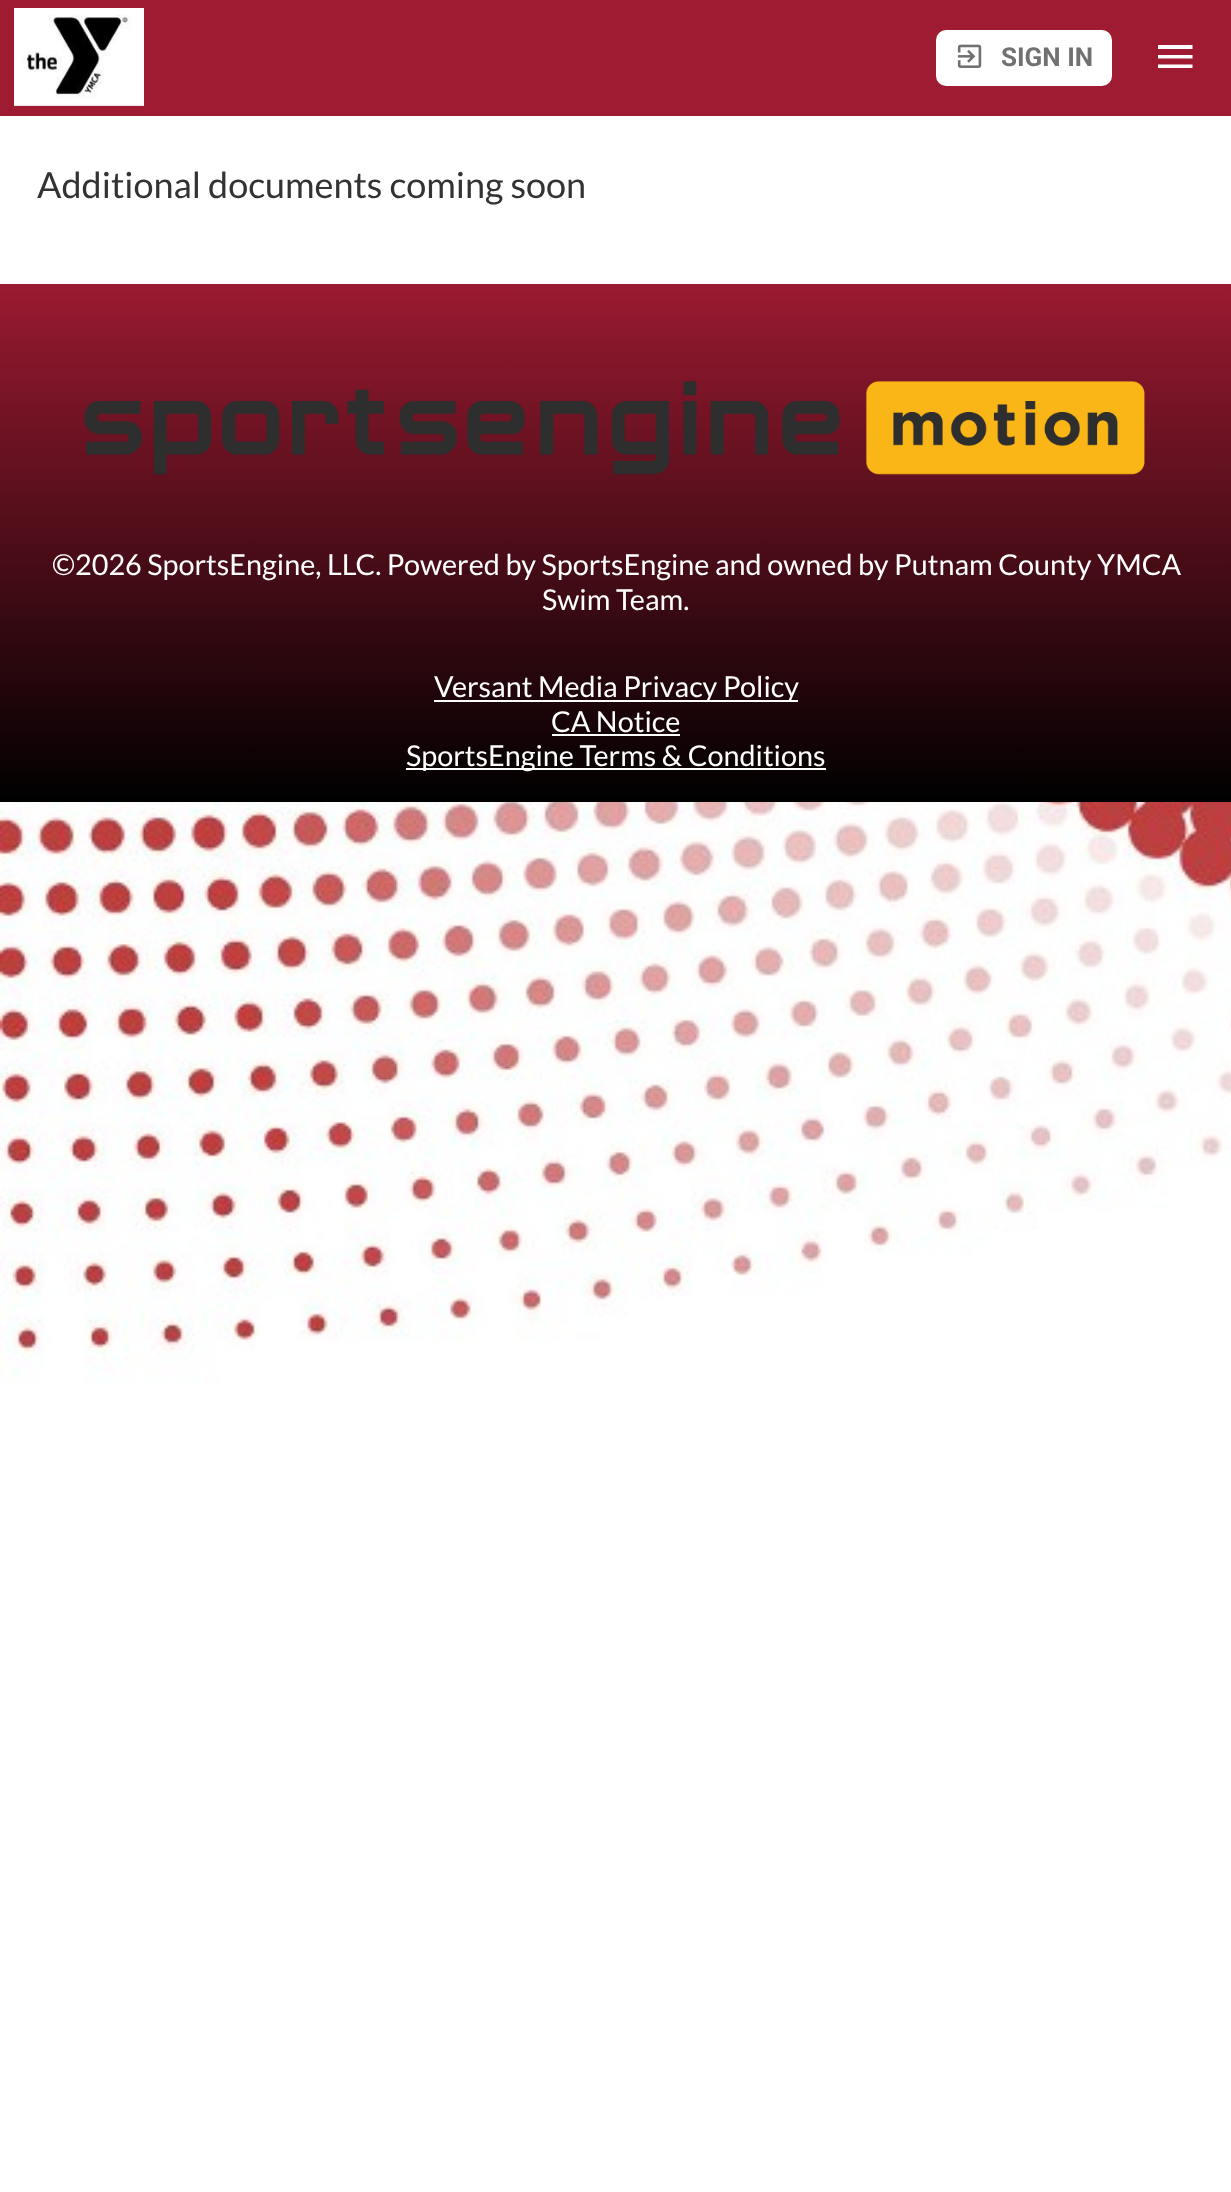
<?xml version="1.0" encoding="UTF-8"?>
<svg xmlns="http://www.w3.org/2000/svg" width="1231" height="2192">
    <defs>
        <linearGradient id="g1" gradientUnits="userSpaceOnUse" x1="616" y1="284" x2="616" y2="802"><stop offset="0" stop-color="#9A1A31"/><stop offset="1" stop-color="#000000"/></linearGradient>
    </defs>
    <rect width="100%" height="100%" fill="#FFFFFF"/>
    <image x="0" y="802" width="1231" height="1390" href="img_01.png"/>
    <rect x="0" y="0" width="1231" height="116" fill="#9E1B32"/>
    <image x="14" y="8" width="130" height="98" href="img_02.png"/>
    <rect x="936" y="30" width="176" height="56" rx="10" fill="#FFFFFF"/>
    <image x="957" y="44" width="25" height="24" href="img_03.png"/>
    <text x="1001" y="66" font-family="Roboto" font-size="26" font-weight="700" fill="#717171">SIGN IN</text>
    <path d="M 1158 45 H 1192.5 V 49 H 1158 Z M 1158 55 H 1192.5 V 58.5 H 1158 Z M 1158 64.5 H 1192.5 V 68 H 1158 Z" fill="#FFFFFF"/>
    <text x="37" y="198" font-family="Lato" font-size="36" fill="#333333">Additional documents coming soon</text>
    <rect x="0" y="284" width="1231" height="518" fill="url(#g1)"/>
    <image x="84" y="381" width="1061" height="94" href="img_04.png"/>
    <text x="52" y="575" font-family="Lato" font-size="28.8" fill="#FFFFFF">©2026 SportsEngine, LLC. Powered by SportsEngine and owned by Putnam County YMCA</text>
    <text x="542" y="610" font-family="Lato" font-size="28.8" fill="#FFFFFF">Swim Team.</text>
    <rect x="434" y="700" width="364" height="2" fill="#FFFFFF"/>
    <text x="434" y="697" font-family="Lato" font-size="28.8" fill="#FFFFFF">Versant Media Privacy Policy</text>
    <text x="551" y="732" font-family="Lato" font-size="28.8" fill="#FFFFFF">CA Notice</text>
    <rect x="552" y="734" width="128" height="2" fill="#FFFFFF"/>
    <rect x="406" y="768" width="420" height="2" fill="#FFFFFF"/>
    <text x="406" y="766" font-family="Lato" font-size="28.8" fill="#FFFFFF">SportsEngine Terms &amp; Conditions</text>
</svg>
